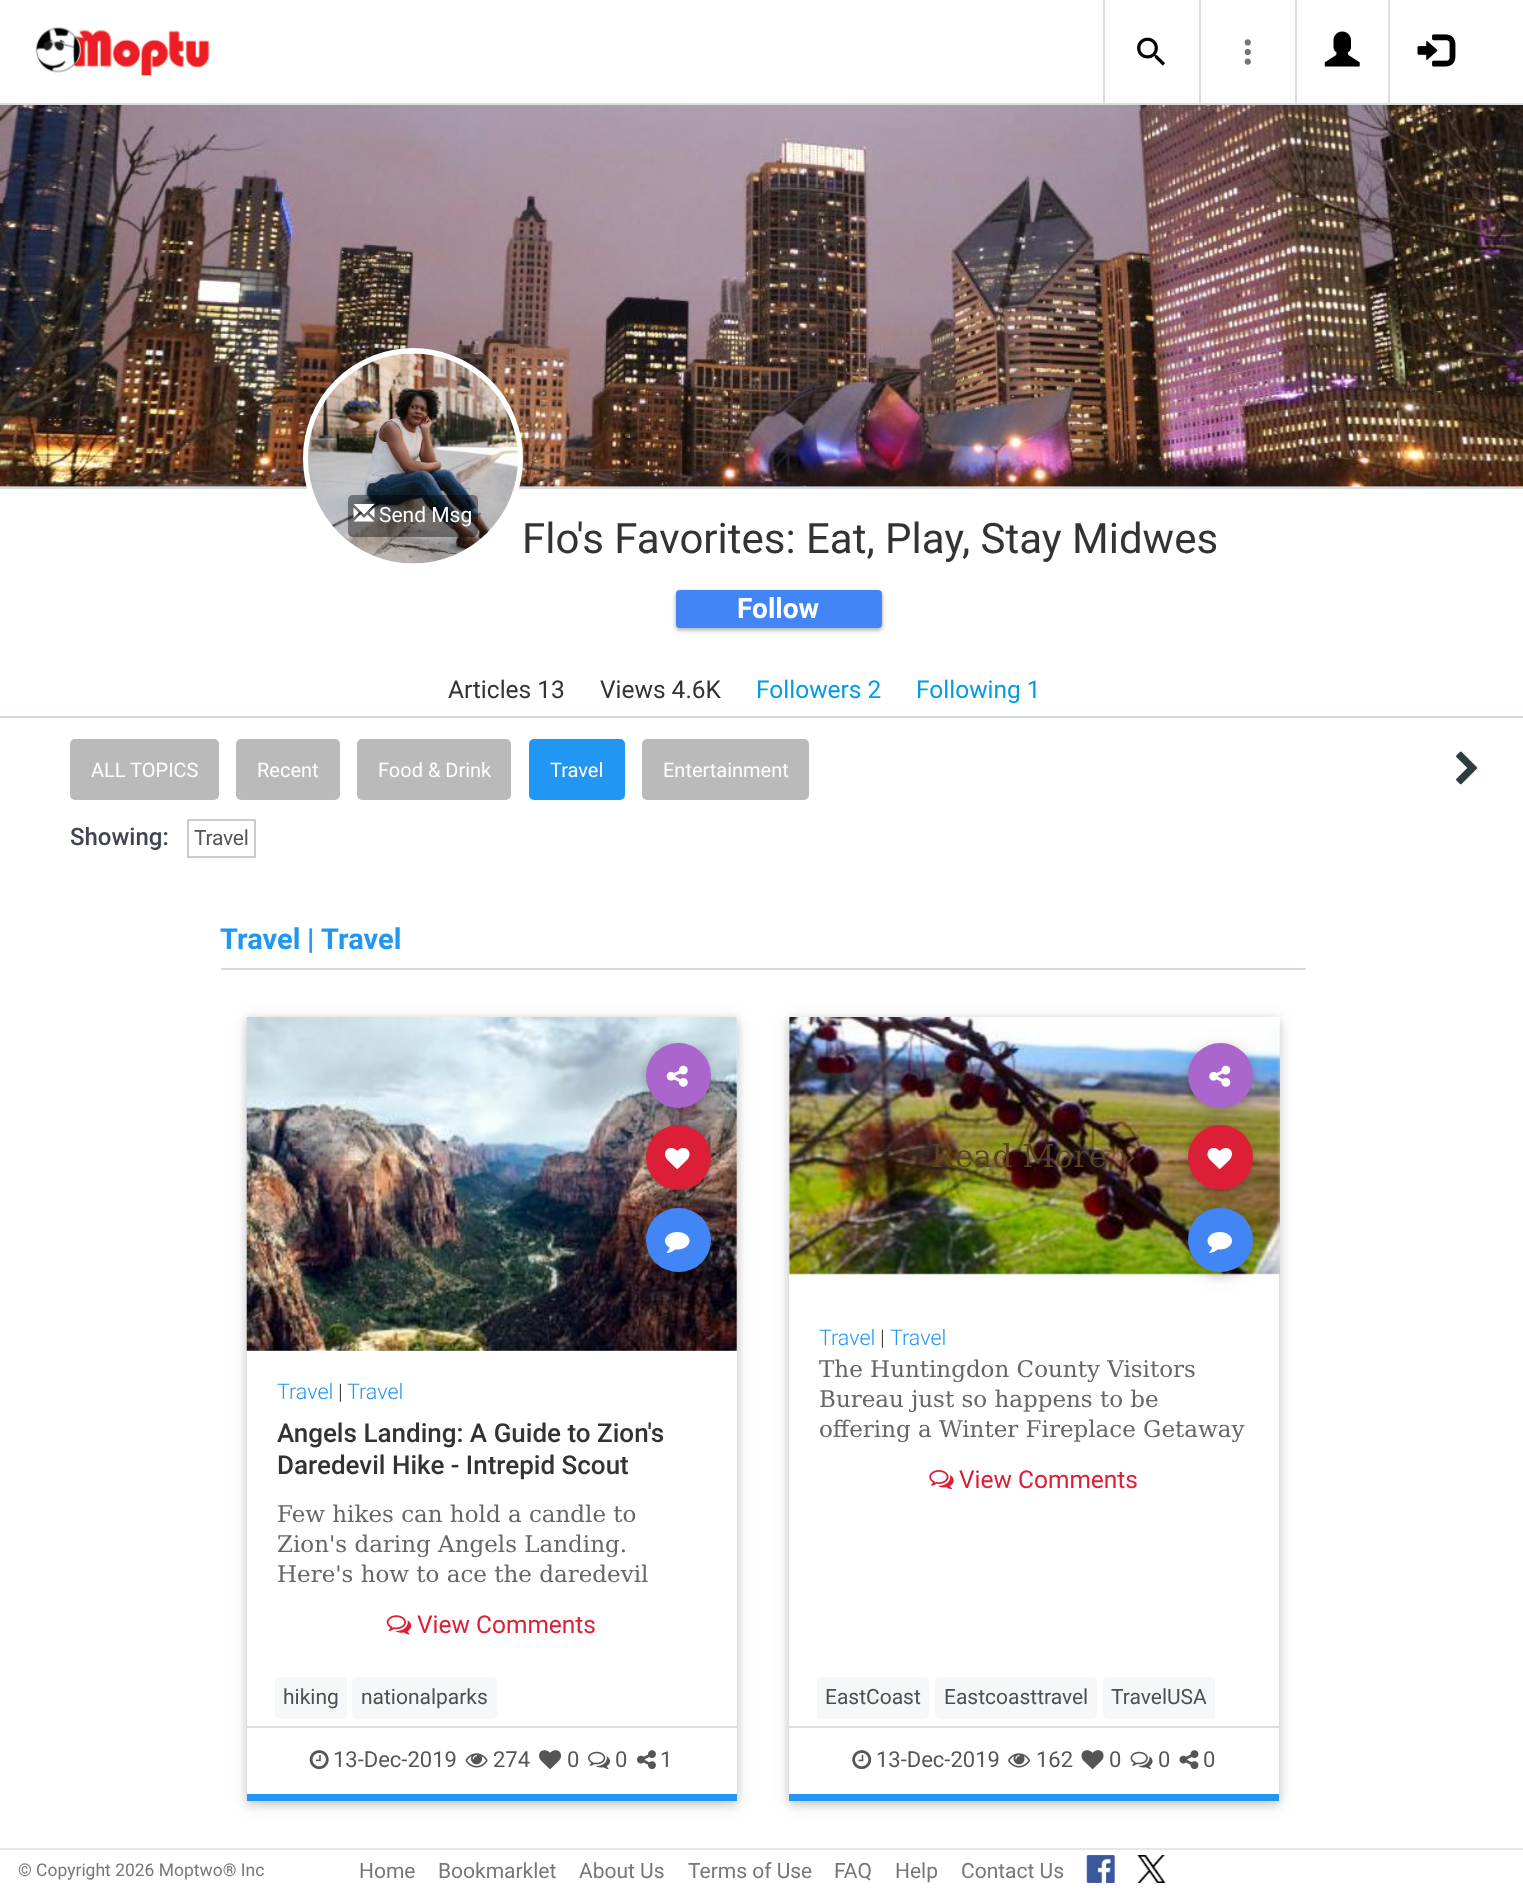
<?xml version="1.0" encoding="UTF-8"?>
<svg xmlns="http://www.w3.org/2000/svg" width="1523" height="1890">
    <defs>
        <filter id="blur1" x="-50%" y="-200%" width="200%" height="500%"><feGaussianBlur stdDeviation="2"/></filter>
        <filter id="blur2" x="-50%" y="-200%" width="200%" height="500%"><feGaussianBlur stdDeviation="2.5"/></filter>
        <filter id="blur3" x="-50%" y="-200%" width="200%" height="500%"><feGaussianBlur stdDeviation="9"/></filter>
        <filter id="blur4" x="-50%" y="-200%" width="200%" height="500%"><feGaussianBlur stdDeviation="4.5"/></filter>
    </defs>
    <rect width="100%" height="100%" fill="#FFFFFF"/>
    <rect x="0" y="103" width="1523" height="2" fill="#DDDDDD"/>
    <image x="35" y="27" width="175" height="50" href="img_01.png"/>
    <rect x="1103" y="0" width="2" height="103" fill="#DDDDDD"/>
    <image x="1137" y="37" width="28" height="29" href="img_02.png"/>
    <rect x="1199" y="0" width="2" height="103" fill="#DDDDDD"/>
    <image x="1244" y="39" width="7" height="26" href="img_03.png"/>
    <rect x="1295" y="0" width="2" height="103" fill="#DDDDDD"/>
    <image x="1324" y="31" width="36" height="36" href="img_04.png"/>
    <rect x="1388" y="0" width="2" height="103" fill="#DDDDDD"/>
    <image x="1417" y="34" width="39" height="33" href="img_05.png"/>
    <rect x="0" y="487" width="1523" height="2" fill="#D3DBE4"/>
    <image x="0" y="105" width="1523" height="382" href="img_06.png"/>
    <rect x="0" y="716" width="1523" height="2" fill="#D3DBE4"/>
    <rect x="305.5" y="350.5" width="215" height="216" rx="107.5" fill="#FFFFFF" stroke="#FFFFFF" stroke-width="5"/>
    <image x="308" y="353" width="210" height="211" href="img_07.png"/>
    <rect x="348" y="495" width="130" height="42" rx="5" fill="#000000" fill-opacity="0.4"/>
    <image x="353" y="504" width="22" height="18" href="img_08.png"/>
    <text x="379" y="522" font-family="Roboto" font-size="21" fill="#FFFFFF">Send Msg</text>
    <text x="522" y="553" font-family="Roboto" font-size="42" fill="#333333">Flo's Favorites: Eat, Play, Stay Midwes</text>
    <rect x="676" y="592" width="206" height="38" rx="4" fill="#000000" fill-opacity="0.24" filter="url(#blur1)"/>
    <rect x="676" y="592" width="206" height="38" rx="4" fill="#000000" fill-opacity="0.12" filter="url(#blur2)"/>
    <rect x="676" y="590" width="206" height="38" rx="4" fill="#4285F4"/>
    <text x="737" y="618" font-family="Roboto" font-size="28" font-weight="700" fill="#FFFFFF">Follow</text>
    <text x="448" y="698" font-family="Roboto" font-size="24.5" fill="#333333">Articles 13</text>
    <text x="600" y="698" font-family="Roboto" font-size="24.5" fill="#333333">Views 4.6K</text>
    <text x="756" y="698" font-family="Roboto" font-size="24.5" fill="#039BE5">Followers 2</text>
    <text x="916" y="698" font-family="Roboto" font-size="24.5" fill="#039BE5">Following 1</text>
    <rect x="70" y="739" width="149" height="61" rx="5" fill="#BABABA"/>
    <text x="91" y="777" font-family="Roboto" font-size="20" fill="#FFFFFF">ALL TOPICS</text>
    <rect x="236" y="739" width="104" height="61" rx="5" fill="#BABABA"/>
    <text x="257" y="777" font-family="Roboto" font-size="20" fill="#FFFFFF">Recent</text>
    <rect x="357" y="739" width="154" height="61" rx="5" fill="#BABABA"/>
    <text x="378" y="777" font-family="Roboto" font-size="20" fill="#FFFFFF">Food &amp; Drink</text>
    <rect x="529" y="739" width="96" height="61" rx="5" fill="#2196F3"/>
    <text x="550" y="777" font-family="Roboto" font-size="20" fill="#FFFFFF">Travel</text>
    <rect x="642" y="739" width="167" height="61" rx="5" fill="#BABABA"/>
    <text x="663" y="777" font-family="Roboto" font-size="20" fill="#FFFFFF">Entertainment</text>
    <image x="1456" y="751" width="22" height="34" href="img_09.png"/>
    <text x="70" y="845" font-family="Roboto" font-size="24" font-weight="500" fill="#3F4652">Showing:</text>
    <rect x="188" y="820" width="67" height="37" fill="none" stroke="#CCCCCC" stroke-width="2"/>
    <text x="194" y="845" font-family="Roboto" font-size="21" letter-spacing="-0.25" fill="#555555">Travel</text>
    <rect x="221" y="968" width="1085" height="2" fill="#D3DBE4"/>
    <text x="220" y="949" font-family="Roboto" font-size="29" font-weight="700" fill="#2196F3">Travel</text>
    <text x="307" y="949" font-family="Roboto" font-size="29" font-weight="700" fill="#2196F3">|</text>
    <text x="321" y="949" font-family="Roboto" font-size="29" font-weight="700" fill="#2196F3">Travel</text>
    <rect x="247" y="1020" width="490" height="784" fill="#000000" fill-opacity="0.12" filter="url(#blur3)"/>
    <rect x="247" y="1020" width="490" height="784" fill="#000000" fill-opacity="0.16" filter="url(#blur4)"/>
    <rect x="247" y="1017" width="490" height="777" fill="#FFFFFF"/>
    <rect x="247" y="1794" width="490" height="7" fill="#2196F3"/>
    <image x="246" y="1017" width="491" height="334" href="img_10.png"/>
    <rect x="646" y="1047" width="65" height="64" rx="32" fill="#000000" fill-opacity="0.12" filter="url(#blur3)"/>
    <rect x="646" y="1047" width="65" height="64" rx="32" fill="#000000" fill-opacity="0.16" filter="url(#blur4)"/>
    <circle cx="678.5" cy="1075.5" r="32.5" fill="#AA66CC"/>
    <image x="666" y="1065" width="22" height="22" href="img_11.png"/>
    <rect x="646" y="1129" width="65" height="65" rx="32.5" fill="#000000" fill-opacity="0.12" filter="url(#blur3)"/>
    <rect x="646" y="1129" width="65" height="65" rx="32.5" fill="#000000" fill-opacity="0.16" filter="url(#blur4)"/>
    <circle cx="678.5" cy="1157.5" r="32.5" fill="#DC1E36"/>
    <image x="665" y="1148" width="25" height="21" href="img_12.png"/>
    <rect x="646" y="1211" width="65" height="65" rx="32.5" fill="#000000" fill-opacity="0.12" filter="url(#blur3)"/>
    <rect x="646" y="1211" width="65" height="65" rx="32.5" fill="#000000" fill-opacity="0.16" filter="url(#blur4)"/>
    <rect x="646" y="1208" width="65" height="64" rx="32" fill="#4285F4"/>
    <image x="665" y="1232" width="25" height="21" href="img_13.png"/>
    <text x="277" y="1399" font-family="Roboto" font-size="21.5" font-weight="300" fill="#2196F3">Travel</text>
    <text x="338" y="1399" font-family="Roboto" font-size="21.5" font-weight="300" fill="#333333">|</text>
    <text x="347" y="1399" font-family="Roboto" font-size="21.5" font-weight="300" fill="#2196F3">Travel</text>
    <text font-family="Roboto" font-size="26" font-weight="500" fill="#333333">
        <tspan x="277" y="1442">Angels Landing: A Guide to Zion's</tspan>
        <tspan x="277" y="1474">Daredevil Hike - Intrepid Scout</tspan>
    </text>
    <text font-family="DejaVu Serif" font-size="23" fill="#666666">
        <tspan x="277" y="1522">Few hikes can hold a candle to</tspan>
        <tspan x="277" y="1552">Zion's daring Angels Landing.</tspan>
        <tspan x="277" y="1582">Here's how to ace the daredevil</tspan>
    </text>
    <image x="386" y="1615" width="26" height="20" href="img_14.png"/>
    <text x="417" y="1633" font-family="Roboto" font-size="24.5" fill="#DC1E36">View Comments</text>
    <rect x="275" y="1677" width="72" height="42" rx="5" fill="#F6F7F9"/>
    <text x="283" y="1704" font-family="Roboto" font-size="21" fill="#4B4F56">hiking</text>
    <rect x="352" y="1677" width="145" height="42" rx="5" fill="#F6F7F9"/>
    <text x="361" y="1704" font-family="Roboto" font-size="21" fill="#4B4F56">nationalparks</text>
    <rect x="247" y="1726" width="490" height="2" fill="#DDDDDD"/>
    <image x="309" y="1750" width="20" height="20" href="img_15.png"/>
    <text x="333" y="1767" font-family="Roboto" font-size="22" fill="#555555">13-Dec-2019</text>
    <image x="465" y="1753" width="23" height="15" href="img_16.png"/>
    <text x="493" y="1767" font-family="Roboto" font-size="22" fill="#555555">274</text>
    <image x="539" y="1750" width="22" height="19" href="img_17.png"/>
    <text x="567" y="1767" font-family="Roboto" font-size="22" fill="#555555">0</text>
    <image x="588" y="1751" width="22" height="18" href="img_18.png"/>
    <text x="615" y="1767" font-family="Roboto" font-size="22" fill="#555555">0</text>
    <image x="637" y="1750" width="19" height="20" href="img_19.png"/>
    <text x="660" y="1767" font-family="Roboto" font-size="22" fill="#555555">1</text>
    <rect x="789" y="1020" width="490" height="784" fill="#000000" fill-opacity="0.12" filter="url(#blur3)"/>
    <rect x="789" y="1020" width="490" height="784" fill="#000000" fill-opacity="0.16" filter="url(#blur4)"/>
    <rect x="789" y="1017" width="490" height="777" fill="#FFFFFF"/>
    <rect x="789" y="1794" width="490" height="7" fill="#2196F3"/>
    <image x="789" y="1017" width="491" height="258" href="img_20.png"/>
    <text x="931" y="1167" font-family="DejaVu Serif" font-size="31.5" fill="#584423">Read More »</text>
    <rect x="1188" y="1047" width="65" height="64" rx="32" fill="#000000" fill-opacity="0.12" filter="url(#blur3)"/>
    <rect x="1188" y="1047" width="65" height="64" rx="32" fill="#000000" fill-opacity="0.16" filter="url(#blur4)"/>
    <circle cx="1220.5" cy="1075.5" r="32.5" fill="#AA66CC"/>
    <image x="1209" y="1065" width="22" height="22" href="img_21.png"/>
    <rect x="1188" y="1129" width="65" height="65" rx="32.5" fill="#000000" fill-opacity="0.12" filter="url(#blur3)"/>
    <rect x="1188" y="1129" width="65" height="65" rx="32.5" fill="#000000" fill-opacity="0.16" filter="url(#blur4)"/>
    <circle cx="1220.5" cy="1157.5" r="32.5" fill="#DC1E36"/>
    <image x="1207" y="1148" width="25" height="21" href="img_22.png"/>
    <rect x="1188" y="1211" width="65" height="65" rx="32.5" fill="#000000" fill-opacity="0.12" filter="url(#blur3)"/>
    <rect x="1188" y="1211" width="65" height="65" rx="32.5" fill="#000000" fill-opacity="0.16" filter="url(#blur4)"/>
    <rect x="1188" y="1208" width="65" height="64" rx="32" fill="#4285F4"/>
    <image x="1207" y="1232" width="25" height="21" href="img_23.png"/>
    <text x="819" y="1345" font-family="Roboto" font-size="21.5" font-weight="300" fill="#2196F3">Travel</text>
    <text x="880" y="1345" font-family="Roboto" font-size="21.5" font-weight="300" fill="#333333">|</text>
    <text x="890" y="1345" font-family="Roboto" font-size="21.5" font-weight="300" fill="#2196F3">Travel</text>
    <text font-family="DejaVu Serif" font-size="23" fill="#666666">
        <tspan x="819" y="1377">The Huntingdon County Visitors</tspan>
        <tspan x="819" y="1407">Bureau just so happens to be</tspan>
        <tspan x="819" y="1437">offering a Winter Fireplace Getaway</tspan>
    </text>
    <image x="929" y="1470" width="25" height="20" href="img_24.png"/>
    <text x="959" y="1488" font-family="Roboto" font-size="24.5" fill="#DC1E36">View Comments</text>
    <rect x="817" y="1677" width="112" height="42" rx="5" fill="#F6F7F9"/>
    <text x="825" y="1704" font-family="Roboto" font-size="21" fill="#4B4F56">EastCoast</text>
    <rect x="935" y="1677" width="162" height="42" rx="5" fill="#F6F7F9"/>
    <text x="944" y="1704" font-family="Roboto" font-size="21" fill="#4B4F56">Eastcoasttravel</text>
    <rect x="1103" y="1677" width="112" height="42" rx="5" fill="#F6F7F9"/>
    <text x="1111" y="1704" font-family="Roboto" font-size="21" fill="#4B4F56">TravelUSA</text>
    <rect x="789" y="1726" width="490" height="2" fill="#DDDDDD"/>
    <image x="852" y="1750" width="20" height="20" href="img_25.png"/>
    <text x="876" y="1767" font-family="Roboto" font-size="22" fill="#555555">13-Dec-2019</text>
    <image x="1008" y="1753" width="22" height="15" href="img_26.png"/>
    <text x="1036" y="1767" font-family="Roboto" font-size="22" fill="#555555">162</text>
    <image x="1081" y="1750" width="23" height="19" href="img_27.png"/>
    <text x="1109" y="1767" font-family="Roboto" font-size="22" fill="#555555">0</text>
    <image x="1130" y="1751" width="23" height="18" href="img_28.png"/>
    <text x="1158" y="1767" font-family="Roboto" font-size="22" fill="#555555">0</text>
    <image x="1179" y="1750" width="20" height="20" href="img_29.png"/>
    <text x="1203" y="1767" font-family="Roboto" font-size="22" fill="#555555">0</text>
    <rect x="0" y="1848" width="1523" height="2" fill="#E7E7E7"/>
    <text x="18" y="1876" font-family="Roboto" font-size="17.5" fill="#777777">© Copyright 2026 Moptwo® Inc</text>
    <text x="359" y="1878" font-family="Roboto" font-size="21" fill="#777777">Home</text>
    <text x="438" y="1878" font-family="Roboto" font-size="21" fill="#777777">Bookmarklet</text>
    <text x="579" y="1878" font-family="Roboto" font-size="21" fill="#777777">About Us</text>
    <text x="688" y="1878" font-family="Roboto" font-size="21" fill="#777777">Terms of Use</text>
    <text x="834" y="1878" font-family="Roboto" font-size="21" fill="#777777">FAQ</text>
    <text x="895" y="1878" font-family="Roboto" font-size="21" fill="#777777">Help</text>
    <text x="961" y="1878" font-family="Roboto" font-size="21" fill="#777777">Contact Us</text>
    <image x="1086" y="1855" width="29" height="28" href="img_30.png"/>
    <image x="1136" y="1855" width="30" height="28" href="img_31.png"/>
</svg>
